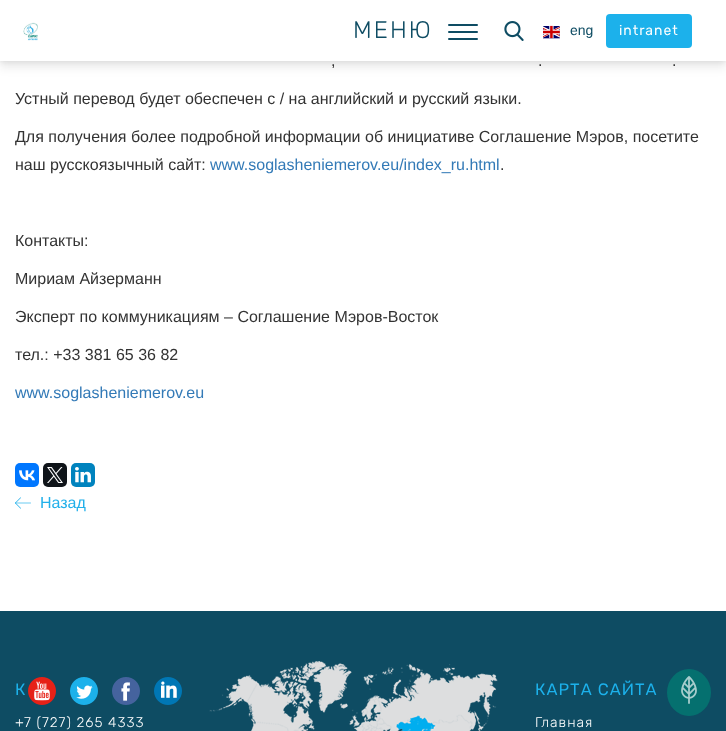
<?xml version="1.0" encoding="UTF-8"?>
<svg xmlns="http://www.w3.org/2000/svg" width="726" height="731">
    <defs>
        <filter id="blur1" x="-50%" y="-200%" width="200%" height="500%"><feGaussianBlur stdDeviation="4"/></filter>
        <filter id="blur2" x="-50%" y="-200%" width="200%" height="500%"><feGaussianBlur stdDeviation="3"/></filter>
    </defs>
    <rect width="100%" height="100%" fill="#FFFFFF"/>
    <rect x="0" y="8" width="726" height="61" fill="#333333" fill-opacity="0.06" filter="url(#blur1)"/>
    <rect x="0" y="0" width="726" height="61" fill="#333333" fill-opacity="0.14" filter="url(#blur2)"/>
    <rect x="0" y="0" width="726" height="61" fill="#FFFFFF"/>
    <image x="23" y="22" width="15" height="19" href="img_01.png"/>
    <text x="353" y="38" font-family="Rubik" font-size="24" font-weight="300" letter-spacing="2" fill="#0E4C63">МЕНЮ</text>
    <rect x="448" y="24" width="30" height="2" rx="1" fill="#0E4C63"/>
    <rect x="448" y="31" width="30" height="2" rx="1" fill="#0E4C63"/>
    <rect x="448" y="38" width="30" height="2" rx="1" fill="#0E4C63"/>
    <image x="504" y="21" width="20" height="20" href="img_02.png"/>
    <image x="543" y="25" width="17" height="14" href="img_03.png"/>
    <text x="570" y="35" font-family="Liberation Sans" font-size="14" fill="#0E4C63">eng</text>
    <rect x="606" y="14" width="86" height="34" rx="4" fill="#1CB1EB"/>
    <text x="619" y="35" font-family="Rubik" font-size="14" letter-spacing="1" fill="#FFFFFF">intranet</text>
    <text x="331" y="66" font-family="Liberation Sans" font-size="16" fill="#333333">,</text>
    <text x="538" y="66" font-family="Liberation Sans" font-size="16" fill="#333333">.</text>
    <text x="672" y="66" font-family="Liberation Sans" font-size="16" fill="#333333">.</text>
    <text x="15" y="104" font-family="Liberation Sans" font-size="16" fill="#333333">Устный перевод будет обеспечен с / на английский и русский языки.</text>
    <text font-family="Liberation Sans" font-size="16" fill="#333333">
        <tspan x="15" y="142">Для получения более подробной информации об инициативе Соглашение Мэров, посетите</tspan>
        <tspan x="15" y="170">наш русскоязычный сайт:</tspan>
    </text>
    <text x="210" y="170" font-family="Liberation Sans" font-size="16" fill="#337AB7">www.soglasheniemerov.eu/index_ru.html</text>
    <text x="500" y="170" font-family="Liberation Sans" font-size="16" fill="#333333">.</text>
    <text x="15" y="246" font-family="Liberation Sans" font-size="16" fill="#333333">Контакты:</text>
    <text x="15" y="284" font-family="Liberation Sans" font-size="16" fill="#333333">Мириам Айзерманн</text>
    <text x="15" y="322" font-family="Liberation Sans" font-size="16" fill="#333333">Эксперт по коммуникациям – Соглашение Мэров-Восток</text>
    <text x="15" y="360" font-family="Liberation Sans" font-size="16" fill="#333333">тел.: +33 381 65 36 82</text>
    <text x="15" y="398" font-family="Liberation Sans" font-size="16" fill="#337AB7">www.soglasheniemerov.eu</text>
    <rect x="15" y="463" width="24" height="24" rx="5" fill="#0077FF"/>
    <image x="19" y="470" width="16" height="11" href="img_04.png"/>
    <rect x="43" y="463" width="24" height="24" rx="5" fill="#0F1419"/>
    <image x="47" y="467" width="16" height="16" href="img_05.png"/>
    <rect x="71" y="463" width="24" height="24" rx="5" fill="#0083BE"/>
    <image x="75" y="467" width="16" height="16" href="img_06.png"/>
    <image x="15" y="497" width="16" height="12" href="img_07.png"/>
    <text x="40" y="508" font-family="Liberation Sans" font-size="16" fill="#22B0EA">Назад</text>
    <rect x="0" y="611" width="726" height="120" fill="#0E4C63"/>
    <image x="28" y="677" width="28" height="28" href="img_08.png"/>
    <image x="70" y="677" width="28" height="28" href="img_09.png"/>
    <image x="112" y="677" width="28" height="28" href="img_10.png"/>
    <image x="154" y="677" width="28" height="28" href="img_11.png"/>
    <text x="15" y="695" font-family="Rubik" font-size="16.5" letter-spacing="1" fill="#1CB1EB">К</text>
    <text x="15" y="727" font-family="Rubik" font-size="14" font-weight="300" letter-spacing="1" fill="#FFFFFF">+7 (727) 265 4333</text>
    <image x="209" y="661" width="289" height="70" href="img_12.png"/>
    <text x="535" y="695" font-family="Rubik" font-size="16.5" letter-spacing="1" fill="#1CB1EB">КАРТА САЙТА</text>
    <text x="535" y="727" font-family="Rubik" font-size="14" font-weight="300" letter-spacing="1" fill="#FFFFFF">Главная</text>
    <ellipse cx="689" cy="692.5" rx="22" ry="23.5" fill="#05706F"/>
    <image x="681" y="676" width="16" height="28" href="img_13.png"/>
</svg>
